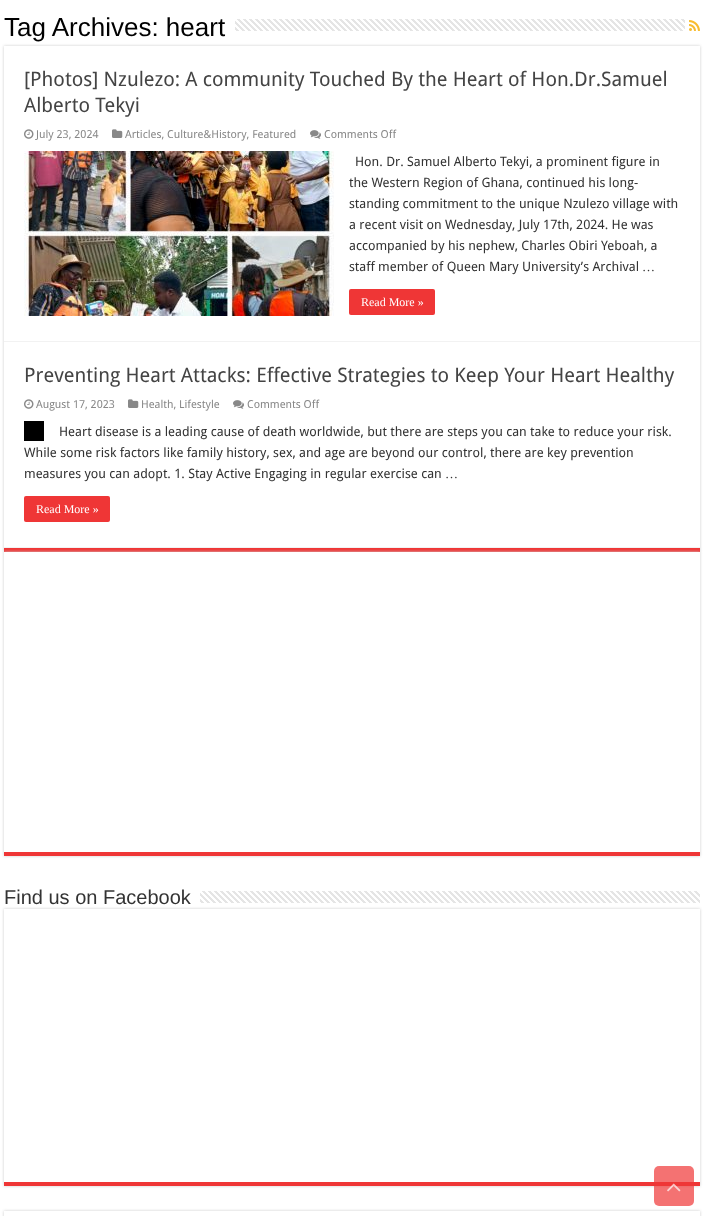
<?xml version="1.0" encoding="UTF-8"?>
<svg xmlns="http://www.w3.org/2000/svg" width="704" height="1216">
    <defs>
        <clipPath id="clip1"><path d="M 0 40 H 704 V 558 H 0 Z M 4 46 H 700 V 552 H 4 Z" clip-rule="evenodd"/></clipPath>
        <filter id="blur1" x="-50%" y="-200%" width="200%" height="500%"><feGaussianBlur stdDeviation="1.5"/></filter>
        <clipPath id="clip2"><path d="M 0 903 H 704 V 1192 H 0 Z M 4 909 H 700 V 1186 H 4 Z" clip-rule="evenodd"/></clipPath>
        <clipPath id="clip3"><path d="M 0 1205 H 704 V 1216 H 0 Z M 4 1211 H 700 V 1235 H 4 Z" clip-rule="evenodd"/></clipPath>
    </defs>
    <rect width="100%" height="100%" fill="#FFFFFF"/>
    <g clip-path="url(#clip1)">
        <rect x="4" y="46" width="696" height="506" fill="#CACACA" filter="url(#blur1)"/>
    </g>
    <text x="4" y="36" font-family="Liberation Sans" font-size="26" fill="#000000">Tag Archives: heart</text>
    <image x="235" y="19" width="450" height="12" href="img_01.png"/>
    <image x="689" y="20" width="11" height="11" href="img_02.png"/>
    <rect x="4" y="548" width="696" height="4" fill="#EF3636"/>
    <rect x="4" y="341" width="696" height="1" fill="#F2F2F2"/>
    <text font-family="Droid Sans" font-size="20" fill="#444444">
        <tspan x="24" y="86">[Photos] Nzulezo: A community Touched By the Heart of Hon.Dr.Samuel</tspan>
        <tspan x="24" y="112">Alberto Tekyi</tspan>
    </text>
    <image x="24" y="129" width="10" height="10" href="img_03.png"/>
    <text x="36" y="138" font-family="Droid Sans" font-size="11" fill="#888888">July 23, 2024</text>
    <image x="112" y="129" width="11" height="9" href="img_04.png"/>
    <text x="125" y="138" font-family="Droid Sans" font-size="11" fill="#888888">Articles, Culture&amp;History, Featured</text>
    <image x="310" y="130" width="11" height="9" href="img_05.png"/>
    <text x="324" y="138" font-family="Droid Sans" font-size="11" fill="#888888">Comments Off</text>
    <image x="24" y="151" width="310" height="165" href="img_06.png"/>
    <text x="355" y="166" font-family="Droid Sans" font-size="13" fill="#333333">Hon. Dr. Samuel Alberto Tekyi, a prominent figure in</text>
    <text font-family="Droid Sans" font-size="13" fill="#333333">
        <tspan x="349" y="187">the Western Region of Ghana, continued his long-</tspan>
        <tspan x="349" y="208">standing commitment to the unique Nzulezo village with</tspan>
        <tspan x="349" y="229">a recent visit on Wednesday, July 17th, 2024. He was</tspan>
        <tspan x="349" y="250">accompanied by his nephew, Charles Obiri Yeboah, a</tspan>
        <tspan x="349" y="271">staff member of Queen Mary University’s Archival</tspan>
    </text>
    <text x="642" y="271" font-family="Liberation Serif" font-size="13" fill="#333333">…</text>
    <rect x="349" y="289" width="86" height="26" rx="2" fill="#EF3636"/>
    <text x="361" y="306" font-family="Liberation Serif" font-size="12" fill="#FFFFFF">Read More »</text>
    <rect x="4" y="547" width="696" height="1" fill="#F2F2F2"/>
    <text x="24" y="382" font-family="Droid Sans" font-size="20" fill="#444444">Preventing Heart Attacks: Effective Strategies to Keep Your Heart Healthy</text>
    <image x="24" y="399" width="10" height="10" href="img_03.png"/>
    <text x="36" y="408" font-family="Droid Sans" font-size="11" fill="#888888">August 17, 2023</text>
    <image x="128" y="399" width="11" height="9" href="img_04.png"/>
    <text x="141" y="408" font-family="Droid Sans" font-size="11" fill="#888888">Health, Lifestyle</text>
    <image x="233" y="400" width="11" height="9" href="img_05.png"/>
    <text x="247" y="408" font-family="Droid Sans" font-size="11" fill="#888888">Comments Off</text>
    <rect x="24" y="421" width="20" height="20" fill="#000000"/>
    <text x="59" y="436" font-family="Droid Sans" font-size="13" fill="#333333">Heart disease is a leading cause of death worldwide, but there are steps you can take to reduce your risk.</text>
    <text font-family="Droid Sans" font-size="13" fill="#333333">
        <tspan x="24" y="457">While some risk factors like family history, sex, and age are beyond our control, there are key prevention</tspan>
        <tspan x="24" y="478">measures you can adopt. 1. Stay Active Engaging in regular exercise can</tspan>
    </text>
    <text x="445" y="478" font-family="Liberation Serif" font-size="13" fill="#333333">…</text>
    <rect x="24" y="496" width="86" height="26" rx="2" fill="#EF3636"/>
    <text x="36" y="513" font-family="Liberation Serif" font-size="12" fill="#FFFFFF">Read More »</text>
    <rect x="4" y="552" width="696" height="304" fill="#CACACA" filter="url(#blur1)"/>
    <rect x="4" y="552" width="696" height="300" fill="#FFFFFF"/>
    <rect x="4" y="852" width="696" height="4" fill="#EF3636"/>
    <g clip-path="url(#clip2)">
        <rect x="4" y="909" width="696" height="277" fill="#CACACA" filter="url(#blur1)"/>
    </g>
    <text x="4" y="904" font-family="Liberation Sans" font-size="20" fill="#333333">Find us on Facebook</text>
    <image x="200" y="891" width="500" height="12" href="img_07.png"/>
    <rect x="4" y="1182" width="696" height="4" fill="#EF3636"/>
    <g clip-path="url(#clip3)">
        <rect x="4" y="1211" width="696" height="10" fill="#CACACA" filter="url(#blur1)"/>
    </g>
    <rect x="654" y="1166" width="40" height="40" rx="5" fill="#EF3636" fill-opacity="0.7"/>
    <image x="667" y="1183" width="14" height="9" href="img_08.png"/>
</svg>
